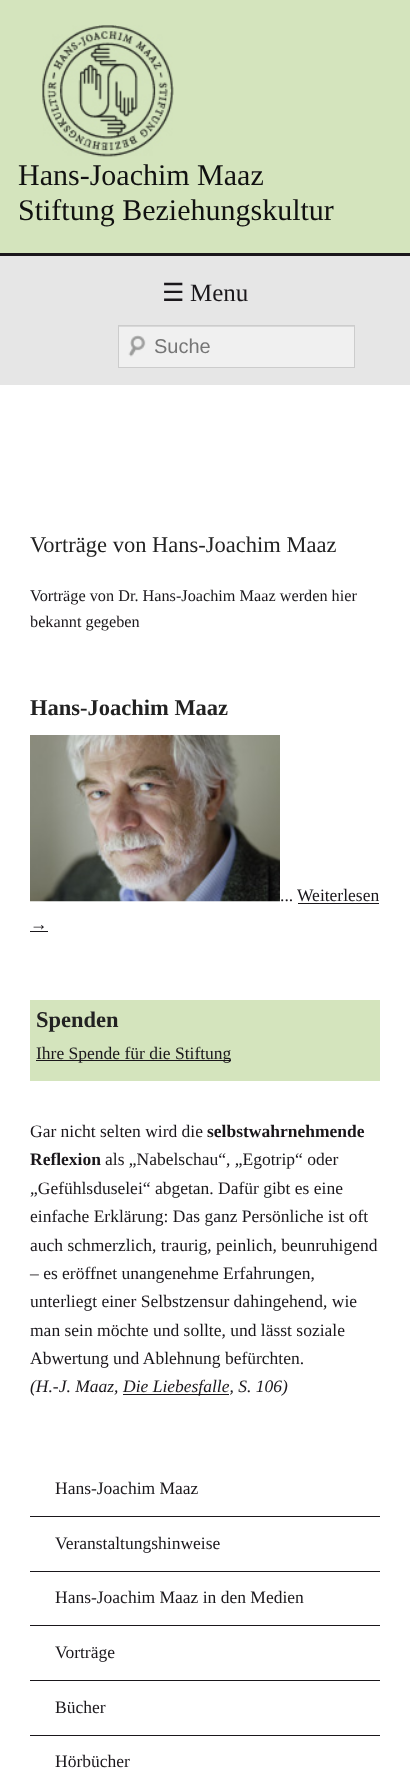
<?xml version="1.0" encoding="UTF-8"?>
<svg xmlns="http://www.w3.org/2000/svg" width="410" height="1779">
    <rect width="100%" height="100%" fill="#FFFFFF"/>
    <rect x="0" y="0" width="410" height="253" fill="#D4E4BD"/>
    <image x="42" y="25" width="132" height="132" href="img_01.png"/>
    <text font-family="Liberation Serif" font-size="30" fill="#111111">
        <tspan x="18" y="185">Hans-Joachim Maaz</tspan>
        <tspan x="18" y="220">Stiftung Beziehungskultur</tspan>
    </text>
    <rect x="0" y="256" width="410" height="129" fill="#E6E6E6"/>
    <rect x="0" y="253" width="410" height="3" fill="#1A171B"/>
    <text x="162" y="301" font-family="DejaVu Sans" font-size="25" fill="#1A171B">☰</text>
    <text x="190" y="301" font-family="Liberation Serif" font-size="25" fill="#1A171B">Menu</text>
    <rect x="119" y="327" width="235" height="40" fill="#F0F0F0"/>
    <image x="128" y="335" width="18" height="22" href="img_02.png"/>
    <rect x="119" y="326" width="235" height="1" fill="#D8D8D8"/>
    <rect x="118.5" y="325.5" width="236" height="42" fill="none" stroke="#CCCCCC"/>
    <text x="154" y="353" font-family="Liberation Sans" font-size="20" fill="#757575">Suche</text>
    <text x="30" y="552" font-family="Liberation Serif" font-size="22.5" fill="#222222">Vorträge von Hans-Joachim Maaz</text>
    <text font-family="Liberation Serif" font-size="16.25" fill="#1A171B">
        <tspan x="30" y="601">Vorträge von Dr. Hans-Joachim Maaz werden hier</tspan>
        <tspan x="30" y="627">bekannt gegeben</tspan>
    </text>
    <text x="30" y="715" font-family="Liberation Serif" font-size="22.5" font-weight="700" fill="#222222">Hans-Joachim Maaz</text>
    <image x="30" y="735" width="250" height="167" href="img_03.png"/>
    <text x="280" y="901" font-family="Liberation Serif" font-size="17.5" fill="#1A171B">...</text>
    <text x="297" y="901" font-family="Liberation Serif" font-size="17.5" fill="#1A171B">Weiterlesen</text>
    <rect x="298" y="903" width="81" height="1" fill="#1A171B"/>
    <text x="30" y="930" font-family="Liberation Serif" font-size="17.5" fill="#1A171B">→</text>
    <rect x="30" y="931" width="18" height="1" fill="#1A171B"/>
    <rect x="30" y="1000" width="350" height="81" fill="#D4E4BD"/>
    <text x="36" y="1027" font-family="Liberation Serif" font-size="22.5" font-weight="700" fill="#222222">Spenden</text>
    <rect x="36" y="1060" width="195" height="1" fill="#1A171B"/>
    <text x="36" y="1059" font-family="Liberation Serif" font-size="17.5" fill="#1A171B">Ihre Spende für die Stiftung</text>
    <text x="30" y="1137" font-family="Liberation Serif" font-size="17.5" fill="#1A171B">Gar nicht selten wird die</text>
    <text x="207" y="1137" font-family="Liberation Serif" font-size="17.5" font-weight="700" fill="#1A171B">selbstwahrnehmende</text>
    <text x="30" y="1165" font-family="Liberation Serif" font-size="17.5" font-weight="700" fill="#1A171B">Reflexion</text>
    <text x="105" y="1165" font-family="Liberation Serif" font-size="17.5" fill="#1A171B">als „Nabelschau“, „Egotrip“ oder</text>
    <text font-family="Liberation Serif" font-size="17.5" fill="#1A171B">
        <tspan x="30" y="1194">„Gefühlsduselei“ abgetan. Dafür gibt es eine</tspan>
        <tspan x="30" y="1222">einfache Erklärung: Das ganz Persönliche ist oft</tspan>
        <tspan x="30" y="1251">auch schmerzlich, traurig, peinlich, beunruhigend</tspan>
        <tspan x="30" y="1279">– es eröffnet unangenehme Erfahrungen,</tspan>
        <tspan x="30" y="1307">unterliegt einer Selbstzensur dahingehend, wie</tspan>
        <tspan x="30" y="1336">man sein möchte und sollte, und lässt soziale</tspan>
        <tspan x="30" y="1364">Abwertung und Ablehnung befürchten.</tspan>
    </text>
    <text x="30" y="1392" font-family="Liberation Serif" font-size="17.5" font-style="italic" fill="#1A171B">(H.-J. Maaz,</text>
    <rect x="123" y="1394" width="106" height="1" fill="#1A171B"/>
    <text x="123" y="1392" font-family="Liberation Serif" font-size="17.5" font-style="italic" fill="#1A171B">Die Liebesfalle, S. 106)</text>
    <rect x="30" y="1516" width="350" height="1" fill="#1A171B"/>
    <text x="55" y="1494" font-family="Liberation Serif" font-size="17.5" fill="#1A171B">Hans-Joachim Maaz</text>
    <rect x="30" y="1571" width="350" height="1" fill="#1A171B"/>
    <text x="55" y="1549" font-family="Liberation Serif" font-size="17.5" fill="#1A171B">Veranstaltungshinweise</text>
    <rect x="30" y="1625" width="350" height="1" fill="#1A171B"/>
    <text x="55" y="1603" font-family="Liberation Serif" font-size="17.5" fill="#1A171B">Hans-Joachim Maaz in den Medien</text>
    <rect x="30" y="1680" width="350" height="1" fill="#1A171B"/>
    <text x="55" y="1658" font-family="Liberation Serif" font-size="17.5" fill="#1A171B">Vorträge</text>
    <rect x="30" y="1735" width="350" height="1" fill="#1A171B"/>
    <text x="55" y="1713" font-family="Liberation Serif" font-size="17.5" fill="#1A171B">Bücher</text>
    <text x="55" y="1767" font-family="Liberation Serif" font-size="17.5" fill="#1A171B">Hörbücher</text>
</svg>
